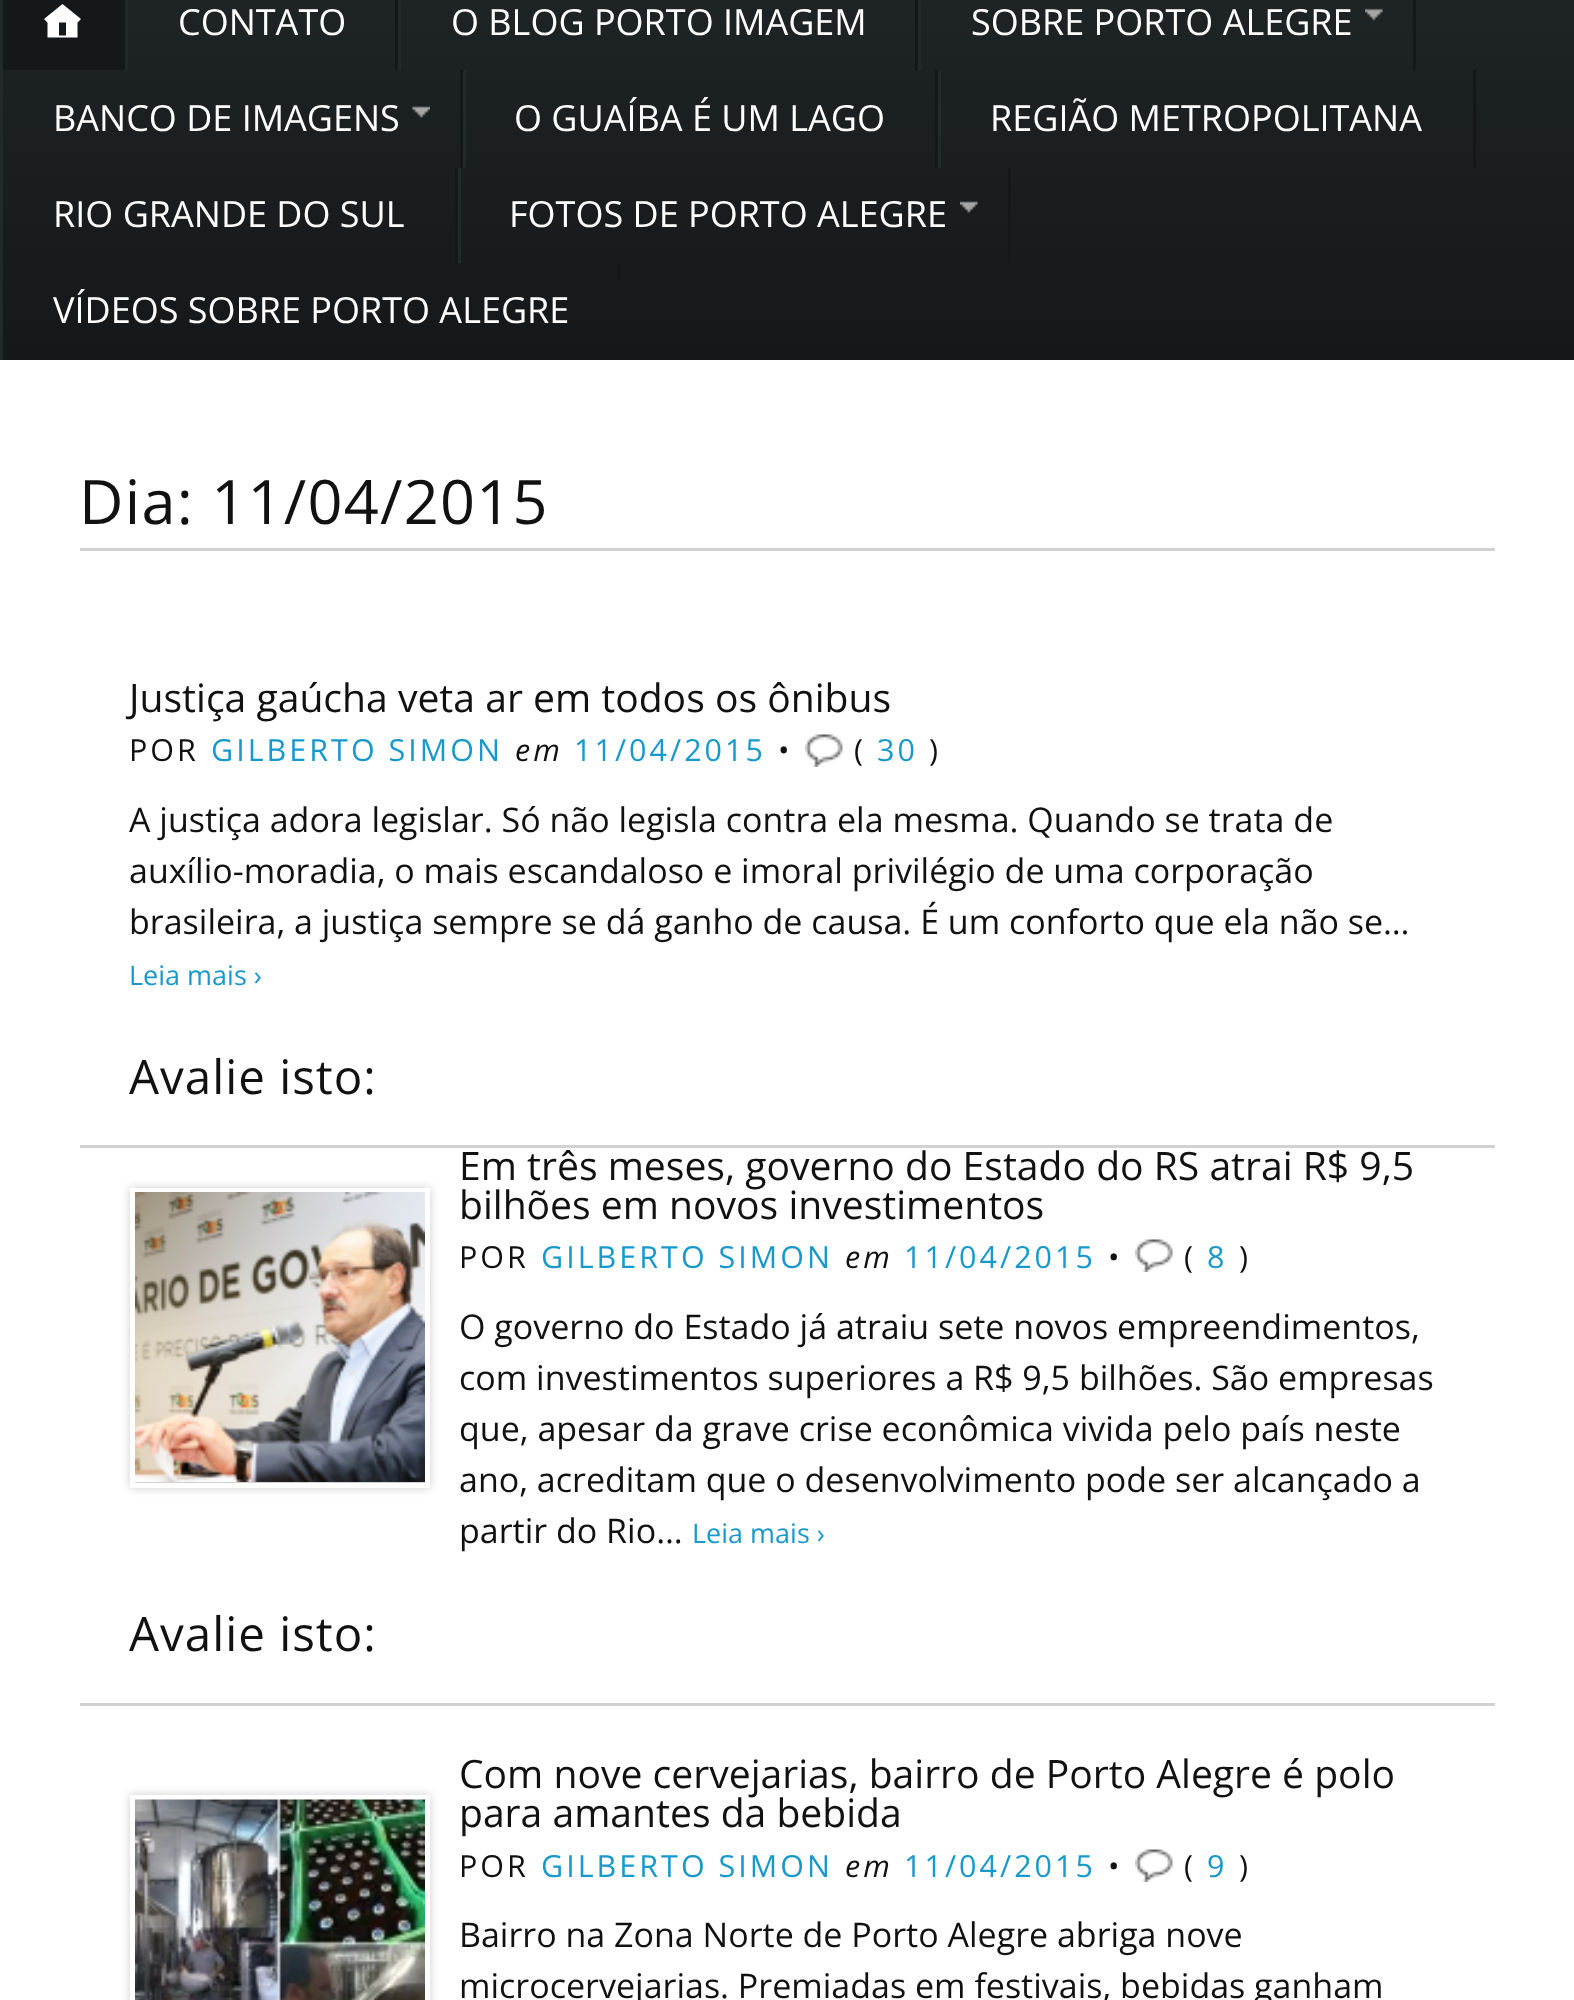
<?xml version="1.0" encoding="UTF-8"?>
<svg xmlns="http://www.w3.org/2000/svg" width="1574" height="2000">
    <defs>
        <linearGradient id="g1" gradientUnits="userSpaceOnUse" x1="788" y1="-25" x2="788" y2="360"><stop offset="0" stop-color="#1F2426"/><stop offset="1" stop-color="#15181A"/></linearGradient>
        <filter id="blur1" x="-50%" y="-200%" width="200%" height="500%"><feGaussianBlur stdDeviation="5"/></filter>
        <clipPath id="clip1"><path d="M 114 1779 H 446 V 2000 H 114 Z M 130 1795 H 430 V 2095 H 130 Z" clip-rule="evenodd"/></clipPath>
    </defs>
    <rect width="100%" height="100%" fill="#FFFFFF"/>
    <rect x="3" y="0" width="1571" height="360" fill="url(#g1)"/>
    <rect x="3" y="0" width="122" height="70" fill="#15181A"/>
    <rect x="0" y="0" width="3" height="360" fill="#23292B"/>
    <path d="M 62.5 4 L 81 19 L 77.5 22.5 V 37.5 H 47.5 V 22.5 L 44 19 Z M 66 35.5 V 22.5 H 59 V 35.5 Z" fill="#FFFFFF"/>
    <rect x="395" y="0" width="3" height="70" fill="#15181A"/>
    <rect x="125" y="0" width="3" height="70" fill="#23292B"/>
    <text x="178" y="35" font-family="Open Sans" font-size="36" fill="#FFFFFF">CONTATO</text>
    <rect x="915" y="0" width="3" height="70" fill="#15181A"/>
    <rect x="398" y="0" width="3" height="70" fill="#23292B"/>
    <text x="451" y="35" font-family="Open Sans" font-size="36" fill="#FFFFFF">O BLOG PORTO IMAGEM</text>
    <rect x="1413" y="0" width="3" height="70" fill="#15181A"/>
    <rect x="918" y="0" width="3" height="70" fill="#23292B"/>
    <text x="971" y="35" font-family="Open Sans" font-size="36" fill="#FFFFFF">SOBRE PORTO ALEGRE</text>
    <image x="1365" y="8" width="18" height="13" href="img_01.png"/>
    <rect x="460" y="70" width="3" height="98" fill="#15181A"/>
    <text x="53" y="131" font-family="Open Sans" font-size="36" fill="#FFFFFF">BANCO DE IMAGENS</text>
    <image x="412" y="106" width="18" height="12" href="img_02.png"/>
    <rect x="935" y="70" width="3" height="98" fill="#15181A"/>
    <rect x="463" y="70" width="3" height="98" fill="#23292B"/>
    <text x="514" y="131" font-family="Open Sans" font-size="36" fill="#FFFFFF">O GUAÍBA É UM LAGO</text>
    <rect x="1473" y="70" width="3" height="98" fill="#15181A"/>
    <rect x="938" y="70" width="3" height="98" fill="#23292B"/>
    <text x="990" y="131" font-family="Open Sans" font-size="36" fill="#FFFFFF">REGIÃO METROPOLITANA</text>
    <rect x="455" y="168" width="3" height="95" fill="#15181A"/>
    <text x="53" y="227" font-family="Open Sans" font-size="36" fill="#FFFFFF">RIO GRANDE DO SUL</text>
    <rect x="1008" y="168" width="3" height="95" fill="#15181A"/>
    <rect x="458" y="168" width="3" height="95" fill="#23292B"/>
    <text x="509" y="227" font-family="Open Sans" font-size="36" fill="#FFFFFF">FOTOS DE PORTO ALEGRE</text>
    <image x="960" y="201" width="18" height="12" href="img_03.png"/>
    <rect x="618" y="263" width="3" height="17" fill="#15181A"/>
    <text x="53" y="323" font-family="Open Sans" font-size="36" fill="#FFFFFF">VÍDEOS SOBRE PORTO ALEGRE</text>
    <rect x="80" y="548" width="1415" height="3" fill="#D2D2D2"/>
    <text x="79" y="524" font-family="Open Sans" font-size="61.25" letter-spacing="1.25" fill="#111111">Dia: 11/04/2015</text>
    <rect x="80" y="1145" width="1415" height="3" fill="#D2D2D2"/>
    <text x="129" y="712" font-family="Open Sans" font-size="39.1" fill="#111111">Justiça gaúcha veta ar em todos os ônibus</text>
    <text x="129" y="761" font-family="Open Sans" font-size="30.5" letter-spacing="3" fill="#111111">POR</text>
    <text x="211" y="761" font-family="Open Sans" font-size="30.5" letter-spacing="3" fill="#1899CB">GILBERTO SIMON</text>
    <text x="515" y="761" font-family="Open Sans" font-size="30.5" font-style="italic" letter-spacing="3" fill="#111111">em</text>
    <text x="574" y="761" font-family="Open Sans" font-size="30.5" letter-spacing="3" fill="#1899CB">11/04/2015</text>
    <text x="778" y="761" font-family="Open Sans" font-size="30.5" letter-spacing="3" fill="#111111">•</text>
    <image x="805" y="734" width="38" height="33" href="img_04.png"/>
    <text x="854" y="761" font-family="Open Sans" font-size="30.5" letter-spacing="3" fill="#111111">(</text>
    <text x="877" y="761" font-family="Open Sans" font-size="30.5" letter-spacing="3" fill="#1899CB">30</text>
    <text x="929" y="761" font-family="Open Sans" font-size="30.5" letter-spacing="3" fill="#111111">)</text>
    <text font-family="Open Sans" font-size="34" fill="#111111">
        <tspan x="129" y="832">A justiça adora legislar. Só não legisla contra ela mesma. Quando se trata de</tspan>
        <tspan x="129" y="883">auxílio-moradia, o mais escandaloso e imoral privilégio de uma corporação</tspan>
        <tspan x="129" y="934">brasileira, a justiça sempre se dá ganho de causa. É um conforto que ela não se…</tspan>
    </text>
    <text x="129" y="985" font-family="Open Sans" font-size="27" fill="#1899CB">Leia mais ›</text>
    <text x="129" y="1094" font-family="Open Sans" font-size="47.5" letter-spacing="1" fill="#111111">Avalie isto:</text>
    <rect x="80" y="1703" width="1415" height="3" fill="#D2D2D2"/>
    <text font-family="Open Sans" font-size="39.1" fill="#111111">
        <tspan x="459" y="1180">Em três meses, governo do Estado do RS atrai R$ 9,5</tspan>
        <tspan x="459" y="1219">bilhões em novos investimentos</tspan>
    </text>
    <text x="459" y="1268" font-family="Open Sans" font-size="30.5" letter-spacing="3" fill="#111111">POR</text>
    <text x="541" y="1268" font-family="Open Sans" font-size="30.5" letter-spacing="3" fill="#1899CB">GILBERTO SIMON</text>
    <text x="845" y="1268" font-family="Open Sans" font-size="30.5" font-style="italic" letter-spacing="3" fill="#111111">em</text>
    <text x="904" y="1268" font-family="Open Sans" font-size="30.5" letter-spacing="3" fill="#1899CB">11/04/2015</text>
    <text x="1108" y="1268" font-family="Open Sans" font-size="30.5" letter-spacing="3" fill="#111111">•</text>
    <image x="1135" y="1239" width="38" height="33" href="img_04.png"/>
    <text x="1184" y="1268" font-family="Open Sans" font-size="30.5" letter-spacing="3" fill="#111111">(</text>
    <text x="1207" y="1268" font-family="Open Sans" font-size="30.5" letter-spacing="3" fill="#1899CB">8</text>
    <text x="1239" y="1268" font-family="Open Sans" font-size="30.5" letter-spacing="3" fill="#111111">)</text>
    <text font-family="Open Sans" font-size="34" fill="#111111">
        <tspan x="459" y="1339">O governo do Estado já atraiu sete novos empreendimentos,</tspan>
        <tspan x="459" y="1390">com investimentos superiores a R$ 9,5 bilhões. São empresas</tspan>
        <tspan x="459" y="1441">que, apesar da grave crise econômica vivida pelo país neste</tspan>
        <tspan x="459" y="1492">ano, acreditam que o desenvolvimento pode ser alcançado a</tspan>
        <tspan x="459" y="1543">partir do Rio…</tspan>
    </text>
    <text x="692" y="1543" font-family="Open Sans" font-size="27" fill="#1899CB">Leia mais ›</text>
    <text x="129" y="1651" font-family="Open Sans" font-size="47.5" letter-spacing="1" fill="#111111">Avalie isto:</text>
    <rect x="130" y="1188" width="300" height="300" fill="#000000" fill-opacity="0.2" filter="url(#blur1)"/>
    <rect x="132.5" y="1190.5" width="295" height="295" fill="none" stroke="#FFFFFF" stroke-width="5"/>
    <image x="135" y="1192" width="290" height="290" href="img_05.png"/>
    <g clip-path="url(#clip1)">
        <rect x="130" y="1795" width="300" height="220" fill="#000000" fill-opacity="0.2" filter="url(#blur1)"/>
    </g>
    <image x="135" y="1799" width="290" height="201" href="img_06.png"/>
    <text font-family="Open Sans" font-size="39.1" fill="#111111">
        <tspan x="459" y="1788">Com nove cervejarias, bairro de Porto Alegre é polo</tspan>
        <tspan x="459" y="1827">para amantes da bebida</tspan>
    </text>
    <text x="459" y="1877" font-family="Open Sans" font-size="30.5" letter-spacing="3" fill="#111111">POR</text>
    <text x="541" y="1877" font-family="Open Sans" font-size="30.5" letter-spacing="3" fill="#1899CB">GILBERTO SIMON</text>
    <text x="845" y="1877" font-family="Open Sans" font-size="30.5" font-style="italic" letter-spacing="3" fill="#111111">em</text>
    <text x="904" y="1877" font-family="Open Sans" font-size="30.5" letter-spacing="3" fill="#1899CB">11/04/2015</text>
    <text x="1108" y="1877" font-family="Open Sans" font-size="30.5" letter-spacing="3" fill="#111111">•</text>
    <image x="1135" y="1849" width="38" height="33" href="img_04.png"/>
    <text x="1184" y="1877" font-family="Open Sans" font-size="30.5" letter-spacing="3" fill="#111111">(</text>
    <text x="1207" y="1877" font-family="Open Sans" font-size="30.5" letter-spacing="3" fill="#1899CB">9</text>
    <text x="1239" y="1877" font-family="Open Sans" font-size="30.5" letter-spacing="3" fill="#111111">)</text>
    <text font-family="Open Sans" font-size="34" fill="#111111">
        <tspan x="459" y="1947">Bairro na Zona Norte de Porto Alegre abriga nove</tspan>
        <tspan x="459" y="1998">microcervejarias. Premiadas em festivais, bebidas ganham</tspan>
    </text>
</svg>
